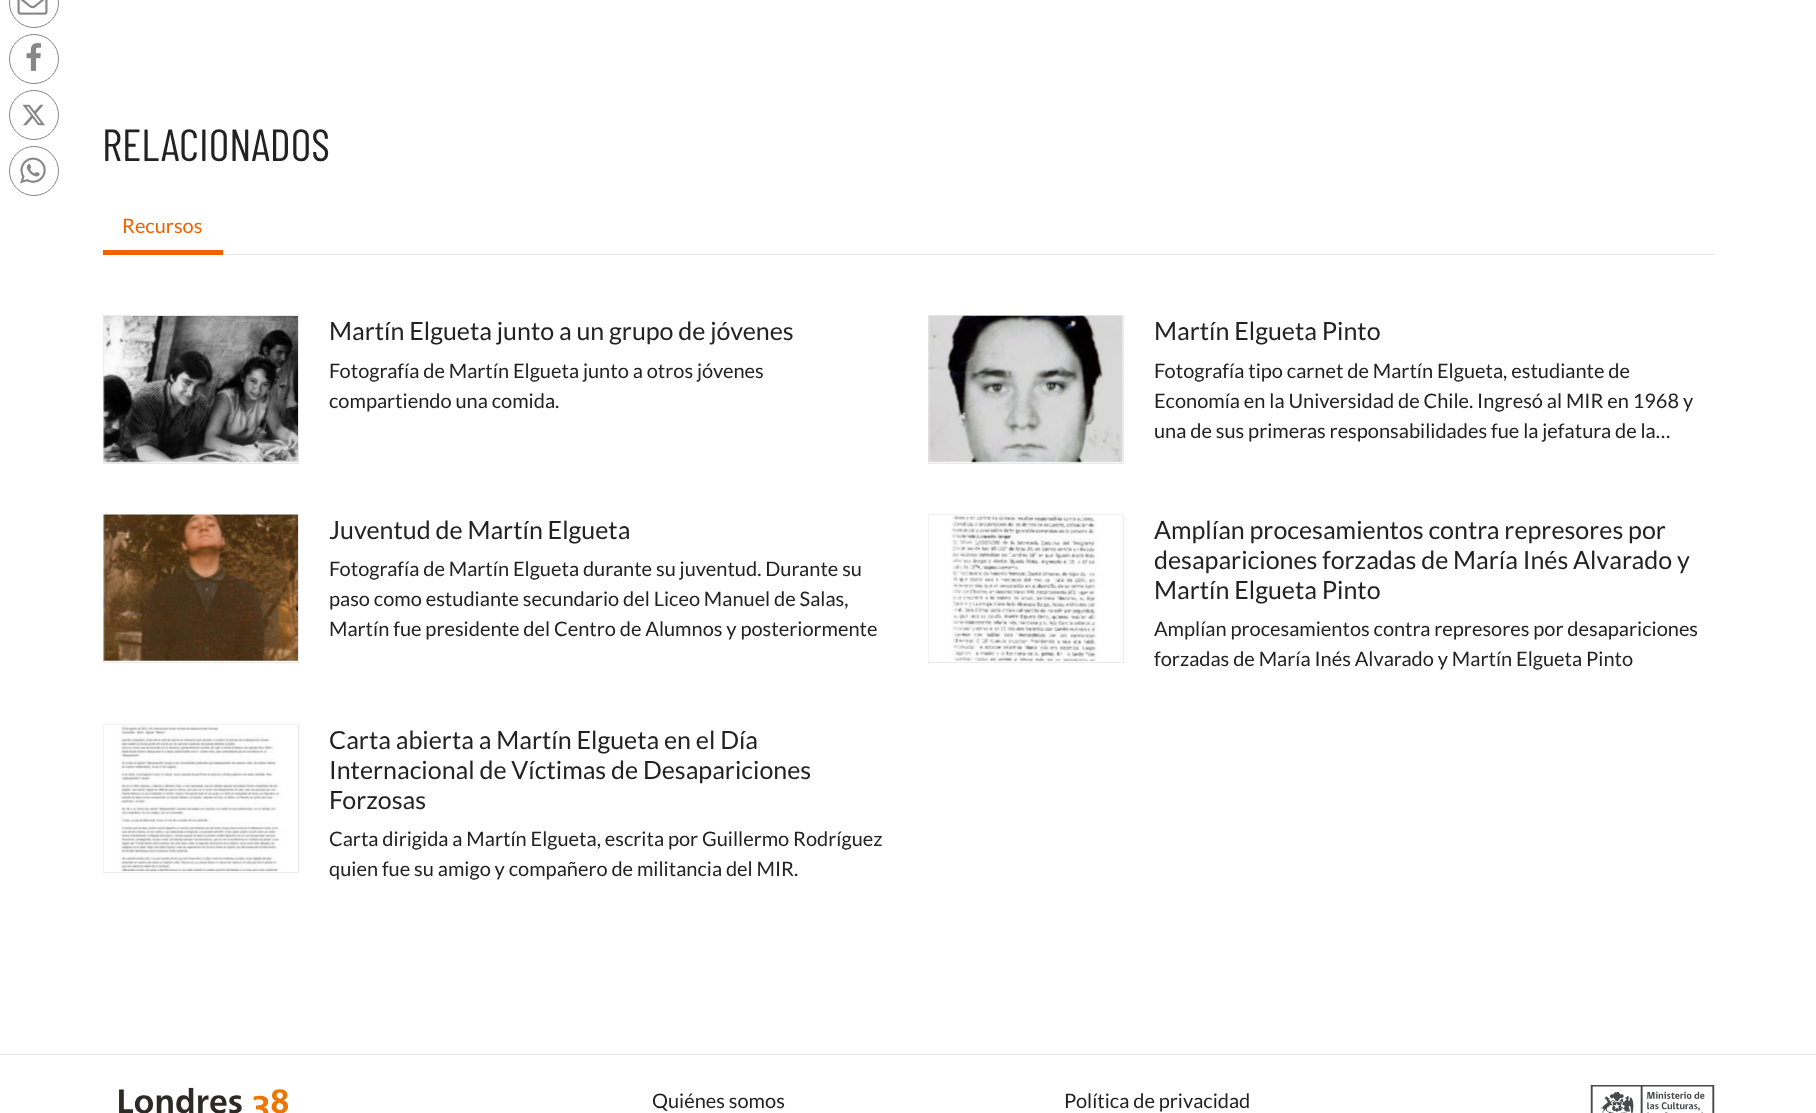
<?xml version="1.0" encoding="UTF-8"?>
<svg xmlns="http://www.w3.org/2000/svg" width="1816" height="1113">
    <rect width="100%" height="100%" fill="#FFFFFF"/>
    <circle cx="34" cy="3" r="24.5" fill="none" stroke="#878787"/>
    <image x="17" y="0" width="31" height="15" href="img_01.png"/>
    <circle cx="34" cy="59" r="24.5" fill="none" stroke="#878787"/>
    <image x="26" y="43" width="16" height="28" href="img_02.png"/>
    <circle cx="34" cy="115" r="24.5" fill="none" stroke="#878787"/>
    <image x="23" y="104" width="22" height="22" href="img_03.png"/>
    <circle cx="34" cy="171" r="24.5" fill="none" stroke="#878787"/>
    <image x="20" y="157" width="26" height="27" href="img_04.png"/>
    <text x="102" y="161" font-family="Barlow Condensed" font-size="45" fill="#222222">RELACIONADOS</text>
    <rect x="223" y="254" width="1492" height="1" fill="#EAEAEA"/>
    <rect x="103" y="250" width="120" height="5" fill="#F06300"/>
    <text x="122" y="233" font-family="Lato" font-size="20" fill="#F06300">Recursos</text>
    <rect x="103.5" y="315.5" width="195" height="148" fill="none" stroke="#EAEAEA"/>
    <image x="103" y="316" width="195" height="147" href="img_05.png"/>
    <text x="329" y="340" font-family="Lato" font-size="25" fill="#222222">Martín Elgueta junto a un grupo de jóvenes</text>
    <text font-family="Lato" font-size="20" fill="#222222">
        <tspan x="329" y="378">Fotografía de Martín Elgueta junto a otros jóvenes</tspan>
        <tspan x="329" y="408">compartiendo una comida.</tspan>
    </text>
    <rect x="928.5" y="315.5" width="195" height="148" fill="none" stroke="#EAEAEA"/>
    <image x="928" y="315" width="195" height="148" href="img_06.png"/>
    <text x="1154" y="340" font-family="Lato" font-size="25" fill="#222222">Martín Elgueta Pinto</text>
    <text font-family="Lato" font-size="20" fill="#222222">
        <tspan x="1154" y="378">Fotografía tipo carnet de Martín Elgueta, estudiante de</tspan>
        <tspan x="1154" y="408">Economía en la Universidad de Chile. Ingresó al MIR en 1968 y</tspan>
        <tspan x="1154" y="438">una de sus primeras responsabilidades fue la jefatura de la…</tspan>
    </text>
    <rect x="103.5" y="514.5" width="195" height="148" fill="none" stroke="#EAEAEA"/>
    <image x="103" y="514" width="195" height="147" href="img_07.png"/>
    <text x="329" y="539" font-family="Lato" font-size="25" fill="#222222">Juventud de Martín Elgueta</text>
    <text font-family="Lato" font-size="20" fill="#222222">
        <tspan x="329" y="576">Fotografía de Martín Elgueta durante su juventud. Durante su</tspan>
        <tspan x="329" y="606">paso como estudiante secundario del Liceo Manuel de Salas,</tspan>
        <tspan x="329" y="636">Martín fue presidente del Centro de Alumnos y posteriormente</tspan>
    </text>
    <rect x="928.5" y="514.5" width="195" height="148" fill="none" stroke="#EAEAEA"/>
    <image x="928" y="514" width="195" height="147" href="img_08.png"/>
    <text font-family="Lato" font-size="25" fill="#222222">
        <tspan x="1154" y="539">Amplían procesamientos contra represores por</tspan>
        <tspan x="1154" y="569">desapariciones forzadas de María Inés Alvarado y</tspan>
        <tspan x="1154" y="599">Martín Elgueta Pinto</tspan>
    </text>
    <text font-family="Lato" font-size="20" fill="#222222">
        <tspan x="1154" y="636">Amplían procesamientos contra represores por desapariciones</tspan>
        <tspan x="1154" y="666">forzadas de María Inés Alvarado y Martín Elgueta Pinto</tspan>
    </text>
    <rect x="103.5" y="724.5" width="195" height="148" fill="none" stroke="#EAEAEA"/>
    <image x="103" y="724" width="195" height="147" href="img_09.png"/>
    <text font-family="Lato" font-size="25" fill="#222222">
        <tspan x="329" y="749">Carta abierta a Martín Elgueta en el Día</tspan>
        <tspan x="329" y="779">Internacional de Víctimas de Desapariciones</tspan>
        <tspan x="329" y="809">Forzosas</tspan>
    </text>
    <text font-family="Lato" font-size="20" fill="#222222">
        <tspan x="329" y="846">Carta dirigida a Martín Elgueta, escrita por Guillermo Rodríguez</tspan>
        <tspan x="329" y="876">quien fue su amigo y compañero de militancia del MIR.</tspan>
    </text>
    <rect x="0" y="1054" width="1816" height="1" fill="#EAEAEA"/>
    <image x="119" y="1087" width="169" height="26" href="img_10.png"/>
    <text x="652" y="1108" font-family="Lato" font-size="20" fill="#222222">Quiénes somos</text>
    <text x="1064" y="1108" font-family="Lato" font-size="20" fill="#222222">Política de privacidad</text>
    <image x="1590" y="1085" width="125" height="28" href="img_11.png"/>
</svg>
